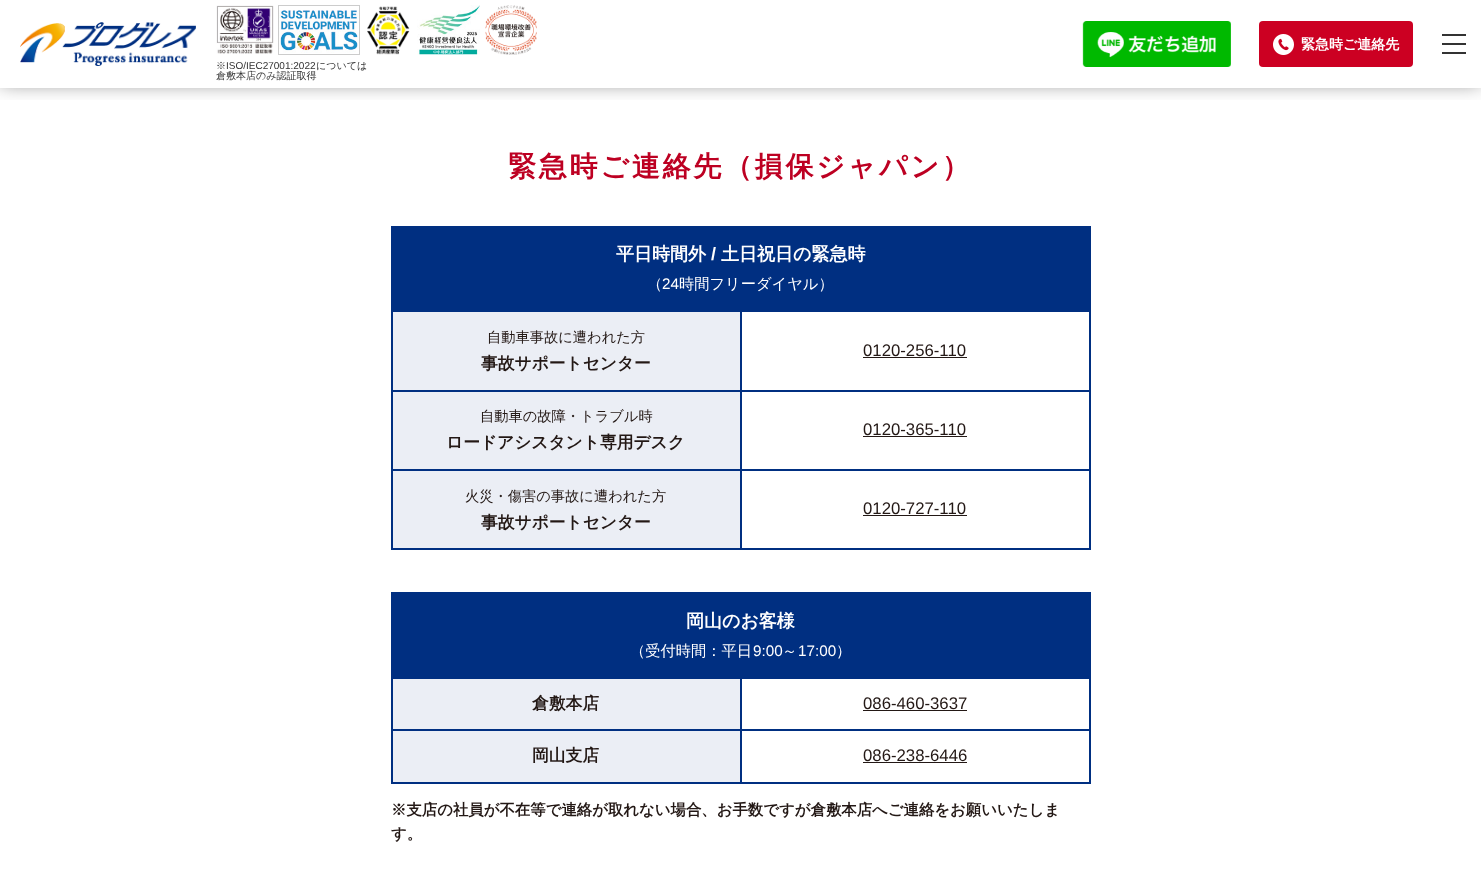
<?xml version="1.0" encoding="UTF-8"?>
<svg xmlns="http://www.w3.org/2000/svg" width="1481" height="879">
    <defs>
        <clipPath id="clip1"><rect x="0" y="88" width="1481" height="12"/></clipPath>
        <filter id="blur1" x="-50%" y="-200%" width="200%" height="500%"><feGaussianBlur stdDeviation="10"/></filter>
    </defs>
    <rect width="100%" height="100%" fill="#FFFFFF"/>
    <g clip-path="url(#clip1)">
        <rect x="0" y="-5" width="1481" height="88" fill="#000000" fill-opacity="0.5" filter="url(#blur1)"/>
    </g>
    <image x="1082" y="21" width="149" height="46" href="img_01.png"/>
    <rect x="1259" y="21" width="154" height="46" rx="4" fill="#CC0022"/>
    <image x="1273" y="34" width="21" height="21" href="img_02.png"/>
    <text x="1301" y="49" font-family="WenQuanYi Zen Hei" font-size="14" font-weight="700" fill="#FFFFFF">緊急時ご連絡先</text>
    <rect x="1442" y="43" width="24" height="2" fill="#333333"/>
    <rect x="1442" y="34" width="24" height="2" fill="#333333"/>
    <rect x="1442" y="52" width="24" height="2" fill="#333333"/>
    <image x="20" y="22" width="176" height="44" href="img_03.png"/>
    <image x="216" y="5" width="58" height="49" href="img_04.png"/>
    <rect x="278.5" y="5.5" width="81" height="49" fill="none" stroke="#CCCCCC"/>
    <image x="367" y="6" width="43" height="49" href="img_05.png"/>
    <image x="417" y="5" width="63" height="50" href="img_06.png"/>
    <image x="485" y="5" width="52" height="50" href="img_07.png"/>
    <image x="279" y="10" width="80" height="43" href="img_08.png"/>
    <text x="216" y="69" font-family="WenQuanYi Zen Hei" font-size="10" font-weight="500" fill="#333333">※</text>
    <text x="226" y="69" font-family="Liberation Sans" font-size="10" fill="#333333">ISO/IEC27001:2022</text>
    <text x="316" y="69" font-family="WenQuanYi Zen Hei" font-size="10" font-weight="500" fill="#333333">については</text>
    <text x="216" y="79" font-family="WenQuanYi Zen Hei" font-size="10" font-weight="500" fill="#333333">倉敷本店のみ認証取得</text>
    <text x="508" y="176" font-family="WenQuanYi Zen Hei" font-size="28" font-weight="700" letter-spacing="2.75" fill="#BD0022">緊急時ご連絡先（損保ジャパン）</text>
    <rect x="391" y="226" width="700" height="84" fill="#002F81"/>
    <text x="616" y="260" font-family="WenQuanYi Zen Hei" font-size="18" font-weight="700" fill="#FFFFFF">平日時間外</text>
    <text x="711" y="260" font-family="Liberation Sans" font-size="18" font-weight="700" fill="#FFFFFF">/</text>
    <text x="721" y="260" font-family="WenQuanYi Zen Hei" font-size="18" font-weight="700" fill="#FFFFFF">土日祝日の緊急時</text>
    <text x="647" y="289" font-family="WenQuanYi Zen Hei" font-size="15.25" font-weight="500" fill="#FFFFFF">（</text>
    <text x="662" y="289" font-family="Liberation Sans" font-size="15.25" fill="#FFFFFF">24</text>
    <text x="679" y="289" font-family="WenQuanYi Zen Hei" font-size="15.25" font-weight="500" fill="#FFFFFF">時間フリーダイヤル）</text>
    <rect x="393" y="312" width="347" height="78" fill="#EBEEF5"/>
    <rect x="740" y="310" width="351" height="2" fill="#002F81"/>
    <rect x="740" y="390" width="351" height="2" fill="#002F81"/>
    <rect x="740" y="469" width="351" height="2" fill="#002F81"/>
    <rect x="1089" y="469" width="2" height="81" fill="#002F81"/>
    <rect x="740" y="548" width="351" height="2" fill="#002F81"/>
    <rect x="740" y="469" width="2" height="81" fill="#002F81"/>
    <rect x="391" y="469" width="351" height="2" fill="#002F81"/>
    <rect x="740" y="390" width="2" height="81" fill="#002F81"/>
    <rect x="391" y="390" width="351" height="2" fill="#002F81"/>
    <rect x="740" y="310" width="2" height="82" fill="#002F81"/>
    <rect x="391" y="310" width="351" height="2" fill="#002F81"/>
    <rect x="391" y="548" width="351" height="2" fill="#002F81"/>
    <rect x="391" y="469" width="2" height="81" fill="#002F81"/>
    <rect x="391" y="390" width="2" height="81" fill="#002F81"/>
    <rect x="391" y="310" width="2" height="82" fill="#002F81"/>
    <text x="487" y="342" font-family="WenQuanYi Zen Hei" font-size="14.25" font-weight="500" fill="#231815">自動車事故に遭われた方</text>
    <text x="481" y="369" font-family="WenQuanYi Zen Hei" font-size="16.75" font-weight="700" fill="#231815">事故サポートセンター</text>
    <rect x="1089" y="390" width="2" height="81" fill="#002F81"/>
    <rect x="1089" y="310" width="2" height="82" fill="#002F81"/>
    <text x="863" y="356" font-family="Liberation Sans" font-size="16.75" fill="#231815">0120-256-110</text>
    <rect x="863" y="357" width="104" height="1" fill="#231815"/>
    <rect x="393" y="392" width="347" height="77" fill="#EBEEF5"/>
    <text x="480" y="421" font-family="WenQuanYi Zen Hei" font-size="14.25" font-weight="500" fill="#231815">自動車の故障・トラブル時</text>
    <text x="446" y="448" font-family="WenQuanYi Zen Hei" font-size="16.75" font-weight="700" fill="#231815">ロードアシスタント専用デスク</text>
    <text x="863" y="435" font-family="Liberation Sans" font-size="16.75" fill="#231815">0120-365-110</text>
    <rect x="863" y="436" width="104" height="1" fill="#231815"/>
    <rect x="393" y="471" width="347" height="77" fill="#EBEEF5"/>
    <text x="465" y="501" font-family="WenQuanYi Zen Hei" font-size="14.25" font-weight="500" fill="#231815">火災・傷害の事故に遭われた方</text>
    <text x="481" y="528" font-family="WenQuanYi Zen Hei" font-size="16.75" font-weight="700" fill="#231815">事故サポートセンター</text>
    <text x="863" y="514" font-family="Liberation Sans" font-size="16.75" fill="#231815">0120-727-110</text>
    <rect x="863" y="515" width="104" height="1" fill="#231815"/>
    <rect x="391" y="592" width="700" height="85" fill="#002F81"/>
    <text x="686" y="627" font-family="WenQuanYi Zen Hei" font-size="18" font-weight="700" fill="#FFFFFF">岡山のお客様</text>
    <text x="630" y="656" font-family="WenQuanYi Zen Hei" font-size="15.25" font-weight="500" fill="#FFFFFF">（受付時間：平日</text>
    <text x="753" y="656" font-family="Liberation Sans" font-size="15.25" fill="#FFFFFF">9:00</text>
    <text x="782" y="656" font-family="WenQuanYi Zen Hei" font-size="15.25" font-weight="500" fill="#FFFFFF">～</text>
    <text x="798" y="656" font-family="Liberation Sans" font-size="15.25" fill="#FFFFFF">17:00</text>
    <text x="836" y="656" font-family="WenQuanYi Zen Hei" font-size="15.25" font-weight="500" fill="#FFFFFF">）</text>
    <rect x="393" y="679" width="347" height="50" fill="#EBEEF5"/>
    <rect x="740" y="677" width="351" height="2" fill="#002F81"/>
    <rect x="740" y="729" width="351" height="2" fill="#002F81"/>
    <rect x="1089" y="729" width="2" height="55" fill="#002F81"/>
    <rect x="740" y="782" width="351" height="2" fill="#002F81"/>
    <rect x="740" y="729" width="2" height="55" fill="#002F81"/>
    <rect x="391" y="729" width="351" height="2" fill="#002F81"/>
    <rect x="740" y="677" width="2" height="54" fill="#002F81"/>
    <rect x="391" y="677" width="351" height="2" fill="#002F81"/>
    <rect x="391" y="782" width="351" height="2" fill="#002F81"/>
    <rect x="391" y="729" width="2" height="55" fill="#002F81"/>
    <rect x="391" y="677" width="2" height="54" fill="#002F81"/>
    <text x="532" y="709" font-family="WenQuanYi Zen Hei" font-size="16.75" font-weight="700" fill="#231815">倉敷本店</text>
    <rect x="1089" y="677" width="2" height="54" fill="#002F81"/>
    <text x="863" y="709" font-family="Liberation Sans" font-size="16.75" fill="#231815">086-460-3637</text>
    <rect x="863" y="710" width="104" height="1" fill="#231815"/>
    <rect x="393" y="731" width="347" height="51" fill="#EBEEF5"/>
    <text x="532" y="761" font-family="WenQuanYi Zen Hei" font-size="16.75" font-weight="700" fill="#231815">岡山支店</text>
    <text x="863" y="761" font-family="Liberation Sans" font-size="16.75" fill="#231815">086-238-6446</text>
    <rect x="863" y="762" width="104" height="1" fill="#231815"/>
    <text font-family="WenQuanYi Zen Hei" font-size="15.4" font-weight="700" fill="#231815">
        <tspan x="391" y="815">※支店の社員が不在等で連絡が取れない場合、お手数ですが倉敷本店へご連絡をお願いいたしま</tspan>
        <tspan x="391" y="839">す。</tspan>
    </text>
</svg>
